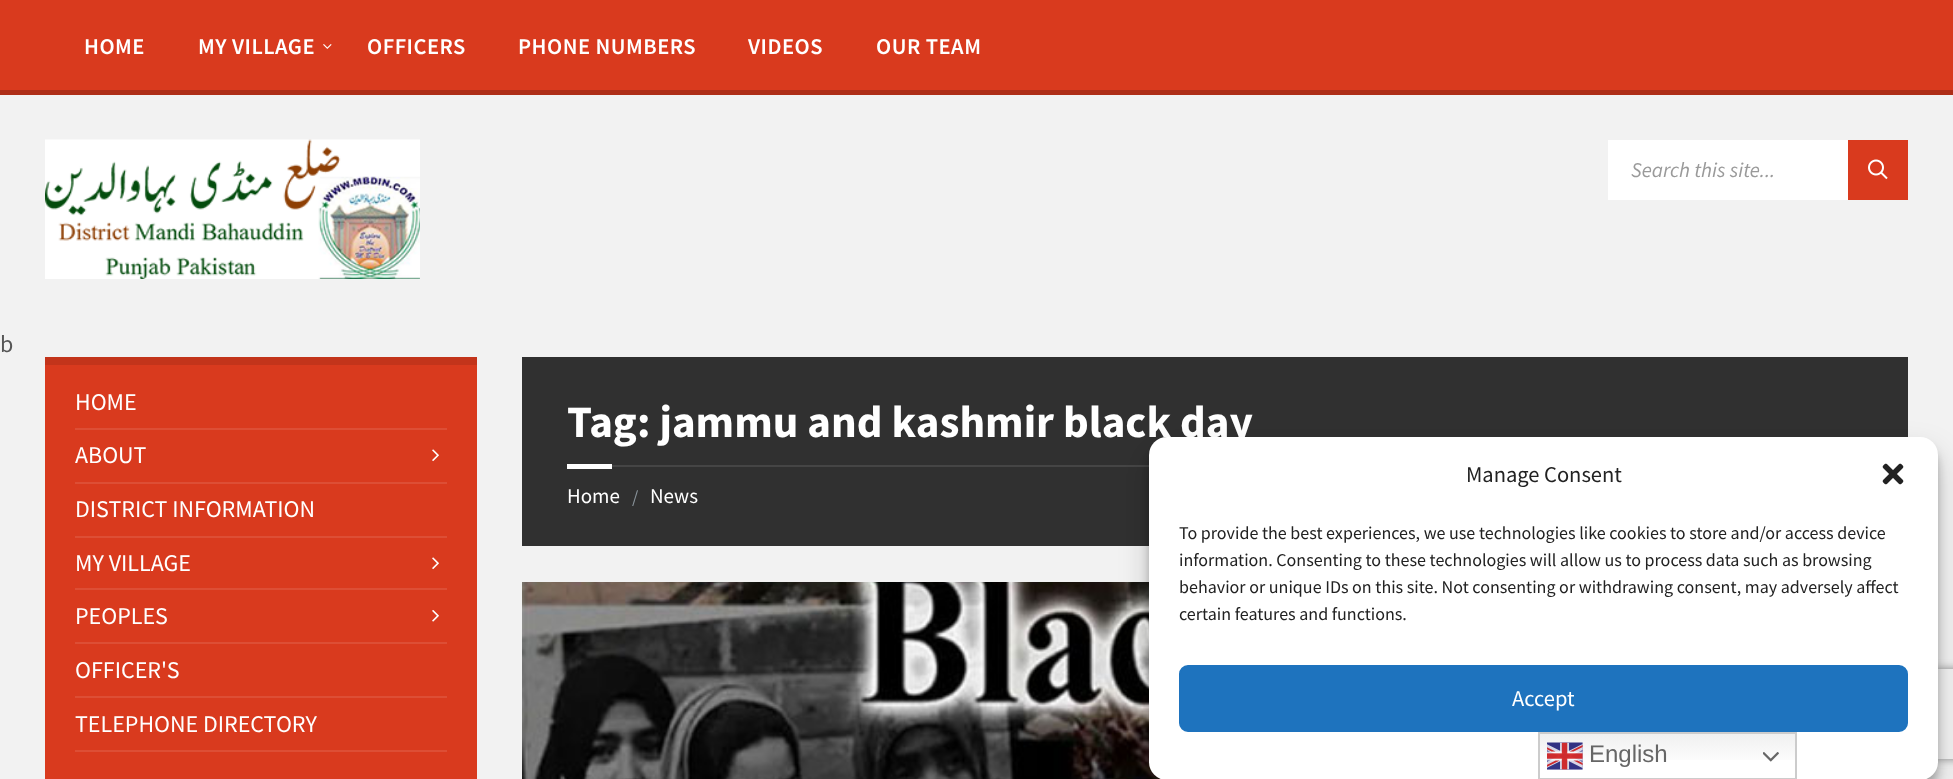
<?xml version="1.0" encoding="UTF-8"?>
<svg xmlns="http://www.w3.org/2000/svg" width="1953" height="779">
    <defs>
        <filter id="blur1" x="-50%" y="-200%" width="200%" height="500%"><feGaussianBlur stdDeviation="4.5"/></filter>
        <filter id="blur2" x="-50%" y="-200%" width="200%" height="500%"><feGaussianBlur stdDeviation="15"/></filter>
        <clipPath id="clip1"><path d="M 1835 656 H 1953 V 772 H 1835 Z M 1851 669 H 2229 C 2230.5 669 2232 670.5 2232 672 V 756 C 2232 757.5 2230.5 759 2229 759 H 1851 C 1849.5 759 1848 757.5 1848 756 V 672 C 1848 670.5 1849.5 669 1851 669 Z" clip-rule="evenodd"/></clipPath>
        <filter id="blur3" x="-50%" y="-200%" width="200%" height="500%"><feGaussianBlur stdDeviation="4"/></filter>
        <linearGradient id="g1" gradientUnits="userSpaceOnUse" x1="1667" y1="732" x2="1667" y2="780"><stop offset="0" stop-color="#EFEFEF"/><stop offset="0.7" stop-color="#FFFFFF"/></linearGradient>
    </defs>
    <rect width="100%" height="100%" fill="#F2F2F2"/>
    <rect x="0" y="0" width="1953" height="90" fill="#D93A1E"/>
    <rect x="0" y="90" width="1953" height="5" fill="#AE2E18"/>
    <text x="84" y="54" font-family="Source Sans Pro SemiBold" font-size="22.5" font-weight="600" letter-spacing="0.5" fill="#FFFFFF">HOME</text>
    <text x="198" y="54" font-family="Source Sans Pro SemiBold" font-size="22.5" font-weight="600" letter-spacing="0.5" fill="#FFFFFF">MY VILLAGE</text>
    <image x="323" y="44" width="9" height="5" href="img_01.png"/>
    <text x="367" y="54" font-family="Source Sans Pro SemiBold" font-size="22.5" font-weight="600" letter-spacing="0.5" fill="#FFFFFF">OFFICERS</text>
    <text x="518" y="54" font-family="Source Sans Pro SemiBold" font-size="22.5" font-weight="600" letter-spacing="0.5" fill="#FFFFFF">PHONE NUMBERS</text>
    <text x="748" y="54" font-family="Source Sans Pro SemiBold" font-size="22.5" font-weight="600" letter-spacing="0.5" fill="#FFFFFF">VIDEOS</text>
    <text x="876" y="54" font-family="Source Sans Pro SemiBold" font-size="22.5" font-weight="600" letter-spacing="0.5" fill="#FFFFFF">OUR TEAM</text>
    <image x="45" y="139" width="375" height="140" href="img_02.png"/>
    <rect x="1608" y="140" width="240" height="60" fill="#FFFFFF"/>
    <text x="1631" y="177" font-family="Source Sans Pro" font-size="21" font-style="italic" fill="#9A9A9A">Search this site...</text>
    <rect x="1848" y="140" width="60" height="60" fill="#D93A1E"/>
    <image x="1868" y="159" width="20" height="21" href="img_03.png"/>
    <text x="0" y="352" font-family="Source Sans Pro" font-size="24" fill="#565656">b</text>
    <rect x="45" y="365" width="432" height="414" fill="#D93A1E"/>
    <rect x="45" y="357" width="432" height="8" fill="#C3341B"/>
    <text x="75" y="410" font-family="Source Sans Pro" font-size="24" fill="#FFFFFF">HOME</text>
    <rect x="75" y="428" width="372" height="2" fill="#DD4E35"/>
    <text x="75" y="463" font-family="Source Sans Pro" font-size="24" fill="#FFFFFF">ABOUT</text>
    <image x="432" y="449" width="7" height="13" href="img_04.png"/>
    <rect x="75" y="482" width="372" height="2" fill="#DD4E35"/>
    <text x="75" y="517" font-family="Source Sans Pro" font-size="24" fill="#FFFFFF">DISTRICT INFORMATION</text>
    <rect x="75" y="536" width="372" height="2" fill="#DD4E35"/>
    <text x="75" y="571" font-family="Source Sans Pro" font-size="24" fill="#FFFFFF">MY VILLAGE</text>
    <image x="432" y="557" width="7" height="13" href="img_04.png"/>
    <rect x="75" y="588" width="372" height="2" fill="#DD4E35"/>
    <text x="75" y="624" font-family="Source Sans Pro" font-size="24" fill="#FFFFFF">PEOPLES</text>
    <image x="432" y="610" width="7" height="12" href="img_05.png"/>
    <rect x="75" y="642" width="372" height="2" fill="#DD4E35"/>
    <text x="75" y="678" font-family="Source Sans Pro" font-size="24" fill="#FFFFFF">OFFICER'S</text>
    <rect x="75" y="696" width="372" height="2" fill="#DD4E35"/>
    <text x="75" y="732" font-family="Source Sans Pro" font-size="24" fill="#FFFFFF">TELEPHONE DIRECTORY</text>
    <rect x="75" y="750" width="372" height="2" fill="#DD4E35"/>
    <rect x="522" y="357" width="1386" height="189" fill="#303030"/>
    <text x="567" y="437" font-family="Source Sans Pro" font-size="45" font-weight="700" fill="#FFFFFF">Tag: jammu and kashmir black day</text>
    <rect x="612" y="465" width="537" height="2" fill="#454545"/>
    <rect x="567" y="464" width="45" height="5" fill="#FFFFFF"/>
    <text x="567" y="503" font-family="Source Sans Pro" font-size="21" fill="#FFFFFF">Home</text>
    <text x="632" y="503" font-family="Source Sans Pro" font-size="18" fill="#8A949B">/</text>
    <text x="650" y="503" font-family="Source Sans Pro" font-size="21" fill="#FFFFFF">News</text>
    <image x="522" y="582" width="639" height="197" href="img_06.png"/>
    <rect x="1149" y="446" width="789" height="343" rx="18" fill="#000000" fill-opacity="0.23" filter="url(#blur1)"/>
    <rect x="1149" y="452" width="789" height="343" rx="18" fill="#000000" fill-opacity="0.19" filter="url(#blur2)"/>
    <g clip-path="url(#clip1)">
        <rect x="1848" y="669" width="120" height="90" rx="3" fill="#808080" filter="url(#blur3)"/>
    </g>
    <rect x="1149" y="437" width="789" height="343" rx="18" fill="#FFFFFF"/>
    <text x="1466" y="482" font-family="Source Sans Pro" font-size="22.5" fill="#222222">Manage Consent</text>
    <image x="1882" y="463" width="22" height="22" href="img_07.png"/>
    <text font-family="Source Sans Pro" font-size="18" fill="#222222">
        <tspan x="1179" y="539">To provide the best experiences, we use technologies like cookies to store and/or access device</tspan>
        <tspan x="1179" y="566">information. Consenting to these technologies will allow us to process data such as browsing</tspan>
        <tspan x="1179" y="593">behavior or unique IDs on this site. Not consenting or withdrawing consent, may adversely affect</tspan>
        <tspan x="1179" y="620">certain features and functions.</tspan>
    </text>
    <rect x="1180" y="666" width="727" height="65" rx="8" fill="#1E73BE" stroke="#1E73BE" stroke-width="2"/>
    <text x="1512" y="706" font-family="Source Sans Pro" font-size="22.5" fill="#FFFFFF">Accept</text>
    <rect x="1540" y="734" width="255" height="26" fill="url(#g1)"/>
    <rect x="1539" y="733" width="257" height="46" fill="none" stroke="#CCCCCC" stroke-width="2"/>
    <image x="1547" y="742" width="36" height="28" href="img_08.png"/>
    <text x="1589" y="762" font-family="Liberation Sans" font-size="24" fill="#666666">English</text>
    <image x="1763" y="752" width="16" height="10" href="img_09.png"/>
</svg>
